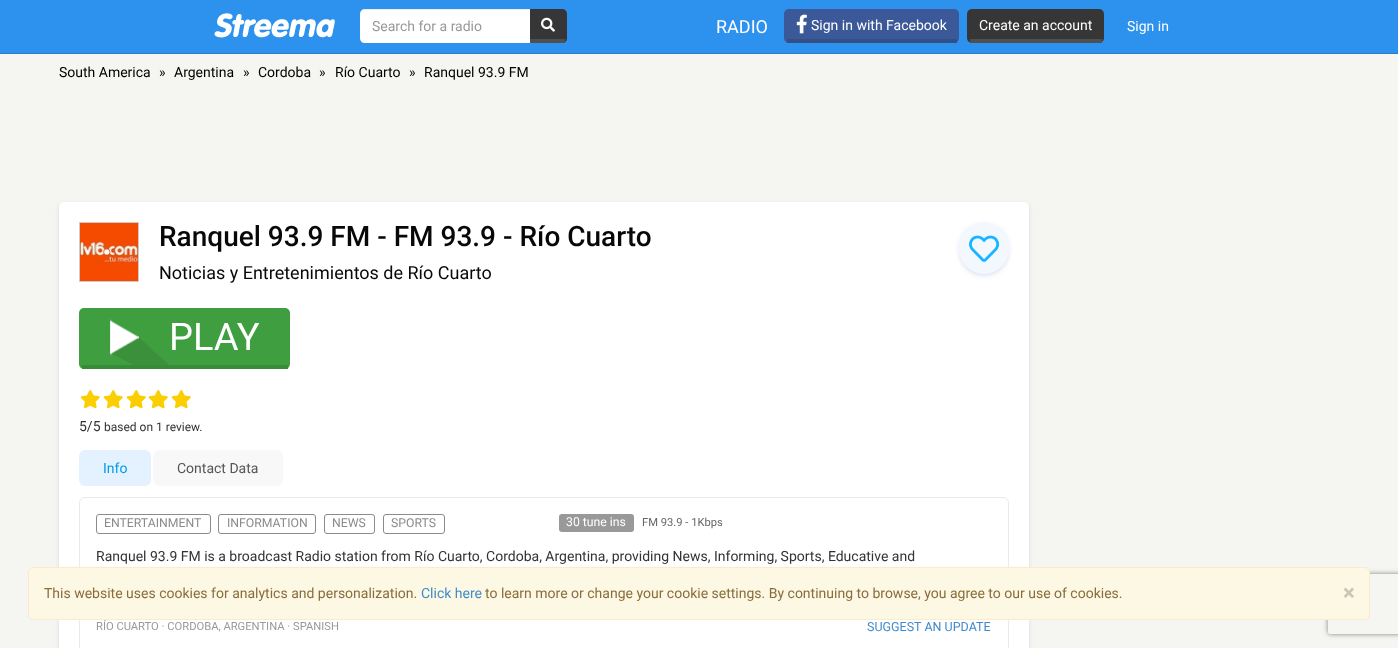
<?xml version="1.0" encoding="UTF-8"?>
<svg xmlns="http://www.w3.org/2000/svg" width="1398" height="648">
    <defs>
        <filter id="blur1" x="-50%" y="-200%" width="200%" height="500%"><feGaussianBlur stdDeviation="2"/></filter>
        <clipPath id="clip1"><path d="M 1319 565 H 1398 V 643 H 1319 Z M 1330 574 H 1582 C 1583 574 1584 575 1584 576 V 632 C 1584 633 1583 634 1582 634 H 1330 C 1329 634 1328 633 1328 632 V 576 C 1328 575 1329 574 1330 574 Z" clip-rule="evenodd"/></clipPath>
        <filter id="blur2" x="-50%" y="-200%" width="200%" height="500%"><feGaussianBlur stdDeviation="2.5"/></filter>
    </defs>
    <rect width="100%" height="100%" fill="#F5F5F1"/>
    <rect x="0" y="0" width="1398" height="53" fill="#2D91EE"/>
    <rect x="0" y="53" width="1398" height="1" fill="#277DCD"/>
    <image x="214" y="13" width="121" height="25" href="img_01.png"/>
    <path d="M 529 9 H 562 C 565 9 567 11 567 14 V 38 C 567 41 565 43 562 43 H 529 Z" fill="#363636"/>
    <rect x="529" y="39" width="36" height="4" fill="#505050"/>
    <path d="M 365 9 H 530 V 43 H 365 C 362 43 360 41 360 38 V 14 C 360 11 362 9 365 9 Z" fill="#FFFFFF"/>
    <path d="M 365 10 H 530 V 9 H 365 C 362 9 360 11 360 14 V 15 C 360 12 362 10 365 10 Z" fill="#000000" fill-opacity="0.07"/>
    <text x="372" y="31" font-family="Roboto" font-size="14" fill="#999999">Search for a radio</text>
    <image x="541" y="17" width="14" height="15" href="img_02.png"/>
    <text x="716" y="33" font-family="Roboto" font-size="18" fill="#FFFFFF">RADIO</text>
    <rect x="784" y="9" width="175" height="34" rx="5" fill="#3B5998"/>
    <rect x="787" y="39" width="170" height="4" fill="#344E86"/>
    <image x="796" y="14" width="11" height="20" href="img_03.png"/>
    <text x="811" y="30" font-family="Roboto" font-size="14" fill="#FFFFFF">Sign in with Facebook</text>
    <rect x="967" y="9" width="137" height="34" rx="5" fill="#363636"/>
    <rect x="970" y="39" width="132" height="4" fill="#505050"/>
    <text x="979" y="30" font-family="Roboto" font-size="14" fill="#FFFFFF">Create an account</text>
    <text x="1127" y="31" font-family="Roboto" font-size="14" fill="#FFFFFF">Sign in</text>
    <text x="59" y="77" font-family="Roboto" font-size="14" fill="#000000">South America</text>
    <text x="159" y="77" font-family="Roboto" font-size="14" fill="#000000">»</text>
    <text x="174" y="77" font-family="Roboto" font-size="14" fill="#000000">Argentina</text>
    <text x="243" y="77" font-family="Roboto" font-size="14" fill="#000000">»</text>
    <text x="258" y="77" font-family="Roboto" font-size="14" fill="#000000">Cordoba</text>
    <text x="319" y="77" font-family="Roboto" font-size="14" fill="#000000">»</text>
    <text x="335" y="77" font-family="Roboto" font-size="14" fill="#000000">Río Cuarto</text>
    <text x="409" y="77" font-family="Roboto" font-size="14" fill="#000000">»</text>
    <text x="424" y="77" font-family="Roboto" font-size="14" fill="#000000">Ranquel 93.9 FM</text>
    <rect x="59" y="204" width="970" height="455" rx="5" fill="#7F8BC9" fill-opacity="0.25" filter="url(#blur1)"/>
    <rect x="59" y="202" width="970" height="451" rx="5" fill="#FFFFFF"/>
    <rect x="79.5" y="222.5" width="59" height="59" fill="none" stroke="#CCCCCC"/>
    <image x="80" y="223" width="58" height="58" href="img_04.png"/>
    <text x="159" y="246" font-family="Roboto" font-size="28" font-weight="500" fill="#080808">Ranquel 93.9 FM - FM 93.9 - Río Cuarto</text>
    <text x="159" y="279" font-family="Roboto" font-size="18" fill="#080808">Noticias y Entretenimientos de Río Cuarto</text>
    <rect x="959" y="224" width="50" height="52" rx="25" fill="#7F8BC9" fill-opacity="0.25" filter="url(#blur1)"/>
    <rect x="959" y="222" width="50" height="52" rx="25" fill="#F3F8FF"/>
    <image x="969" y="235" width="31" height="27" href="img_05.png"/>
    <rect x="79" y="308" width="211" height="61" rx="5" fill="#3F9E40"/>
    <rect x="82" y="365" width="206" height="4" fill="#388C39"/>
    <image x="110" y="319" width="58" height="46" href="img_06.png"/>
    <text x="169" y="350" font-family="Roboto" font-size="38" fill="#FFFFFF">PLAY</text>
    <image x="80" y="390" width="20" height="19" href="img_07.png"/>
    <image x="103" y="390" width="20" height="19" href="img_07.png"/>
    <image x="126" y="390" width="20" height="19" href="img_07.png"/>
    <image x="148" y="390" width="20" height="19" href="img_07.png"/>
    <image x="171" y="390" width="20" height="19" href="img_07.png"/>
    <text x="79" y="431" font-family="Roboto" font-size="14" fill="#333333">5/5</text>
    <text x="104" y="431" font-family="Roboto" font-size="12" fill="#333333">based on 1 review.</text>
    <rect x="79" y="450" width="72" height="36" rx="6" fill="#E4F1FF"/>
    <text x="103" y="473" font-family="Roboto" font-size="14" fill="#009BE5">Info</text>
    <rect x="153" y="450" width="130" height="36" rx="6" fill="#F8F8F8"/>
    <text x="177" y="473" font-family="Roboto" font-size="14" fill="#555555">Contact Data</text>
    <rect x="79.5" y="497.5" width="929" height="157" rx="5.5" fill="none" stroke="#EAEAEA"/>
    <rect x="96.5" y="514.5" width="114" height="19" rx="2.5" fill="none" stroke="#8B8B8B"/>
    <text x="104" y="527" font-family="Roboto" font-size="12.25" fill="#8B8B8B">ENTERTAINMENT</text>
    <rect x="218.5" y="514.5" width="97" height="19" rx="2.5" fill="none" stroke="#8B8B8B"/>
    <text x="227" y="527" font-family="Roboto" font-size="12.25" fill="#8B8B8B">INFORMATION</text>
    <rect x="324.5" y="514.5" width="50" height="19" rx="2.5" fill="none" stroke="#8B8B8B"/>
    <text x="332" y="527" font-family="Roboto" font-size="12.25" fill="#8B8B8B">NEWS</text>
    <rect x="383.5" y="514.5" width="61" height="19" rx="2.5" fill="none" stroke="#8B8B8B"/>
    <text x="391" y="527" font-family="Roboto" font-size="12.25" fill="#8B8B8B">SPORTS</text>
    <rect x="559" y="514" width="75" height="18" rx="3" fill="#999999"/>
    <text x="566" y="526" font-family="Roboto" font-size="12.25" fill="#FFFFFF">30 tune ins</text>
    <text x="642" y="526" font-family="Roboto" font-size="11.2" fill="#666666">FM 93.9 - 1Kbps</text>
    <text x="96" y="561" font-family="Roboto" font-size="14" fill="#333333">Ranquel 93.9 FM is a broadcast Radio station from Río Cuarto, Cordoba, Argentina, providing News, Informing, Sports, Educative and</text>
    <text x="96" y="630" font-family="Roboto" font-size="11.2" fill="#999999">RÍO CUARTO · CORDOBA, ARGENTINA · SPANISH</text>
    <text x="867" y="631" font-family="Roboto" font-size="12.5" fill="#428BCA">SUGGEST AN UPDATE</text>
    <g clip-path="url(#clip1)">
        <rect x="1328" y="574" width="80" height="60" rx="2" fill="#808080" filter="url(#blur2)"/>
    </g>
    <rect x="28.5" y="567.5" width="1341" height="52" rx="4.5" fill="#FCF8E3" stroke="#FAEBCC"/>
    <text x="44" y="598" font-family="Roboto" font-size="14" fill="#8A6D3B">This website uses cookies for analytics and personalization.</text>
    <text x="421" y="598" font-family="Roboto" font-size="14" fill="#428BCA">Click here</text>
    <text x="485" y="598" font-family="Roboto" font-size="14" fill="#8A6D3B">to learn more or change your cookie settings. By continuing to browse, you agree to our use of cookies.</text>
    <text x="1343" y="600" font-family="Roboto" font-size="21" font-weight="700" fill="#CAC6B6">×</text>
</svg>
